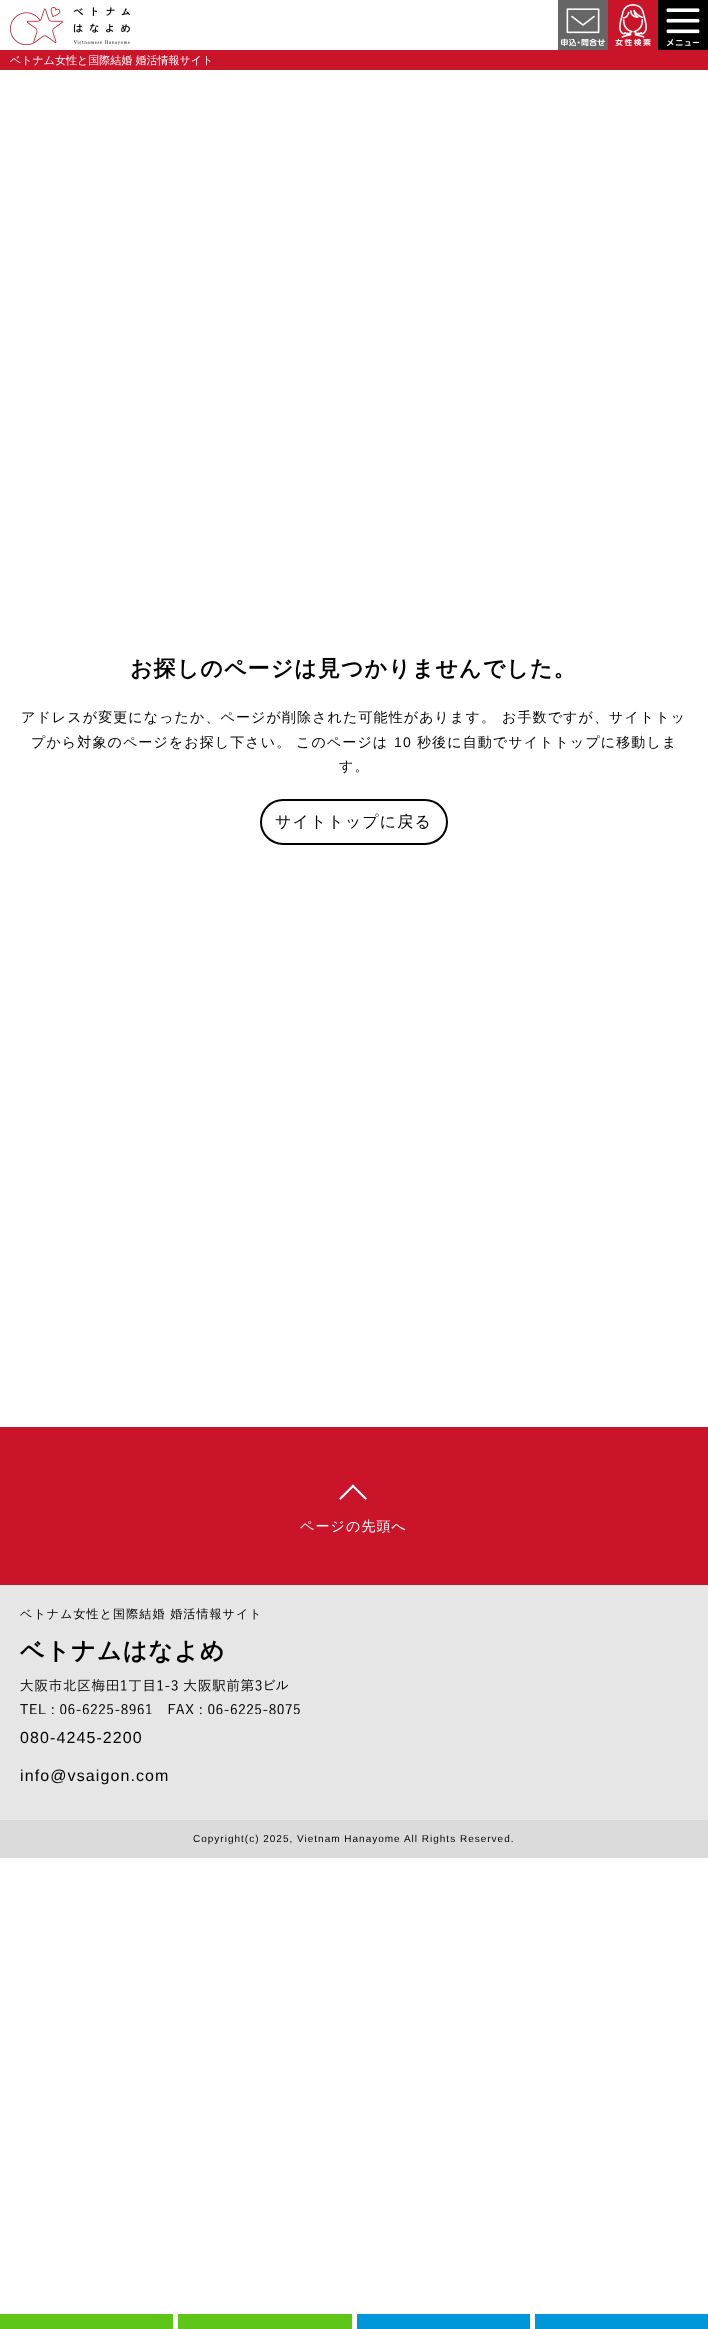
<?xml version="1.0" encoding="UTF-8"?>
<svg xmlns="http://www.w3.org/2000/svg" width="708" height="2329">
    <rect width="100%" height="100%" fill="#FFFFFF"/>
    <rect x="558" y="0" width="50" height="50" fill="#666666"/>
    <image x="561" y="8" width="44" height="38" href="img_01.png"/>
    <rect x="608" y="0" width="50" height="50" fill="#C9142A"/>
    <image x="615" y="4" width="36" height="42" href="img_02.png"/>
    <rect x="658" y="0" width="50" height="50" fill="#000000"/>
    <image x="666" y="8" width="34" height="38" href="img_03.png"/>
    <image x="10" y="7" width="120" height="38" href="img_04.png"/>
    <rect x="0" y="50" width="708" height="20" fill="#C9142A"/>
    <text x="10" y="64" font-family="WenQuanYi Zen Hei" font-size="11" font-weight="500" fill="#FFFFFF">ベトナム女性と国際結婚 婚活情報サイト</text>
    <text x="130" y="676" font-family="WenQuanYi Zen Hei" font-size="22" font-weight="700" letter-spacing="1.1" fill="#000000">お探しのページは見つかりませんでした。</text>
    <text x="21" y="722" font-family="WenQuanYi Zen Hei" font-size="14" font-weight="500" letter-spacing="1.1" fill="#000000">アドレスが変更になったか、ページが削除された可能性があります。</text>
    <text x="502" y="722" font-family="WenQuanYi Zen Hei" font-size="14" font-weight="500" letter-spacing="1.1" fill="#000000">お手数ですが、サイトトッ</text>
    <text x="31" y="747" font-family="WenQuanYi Zen Hei" font-size="14" font-weight="500" letter-spacing="1.1" fill="#000000">プから対象のページをお探し下さい。</text>
    <text x="296" y="747" font-family="WenQuanYi Zen Hei" font-size="14" font-weight="500" letter-spacing="1.1" fill="#000000">このページは</text>
    <text x="394" y="747" font-family="Liberation Sans" font-size="14" letter-spacing="1.1" fill="#000000">10</text>
    <text x="417" y="747" font-family="WenQuanYi Zen Hei" font-size="14" font-weight="500" letter-spacing="1.1" fill="#000000">秒後に自動でサイトトップに移動しま</text>
    <text x="339" y="771" font-family="WenQuanYi Zen Hei" font-size="14" font-weight="500" letter-spacing="1.1" fill="#000000">す。</text>
    <rect x="261" y="800" width="186" height="44" rx="22" fill="none" stroke="#000000" stroke-width="2"/>
    <text x="275" y="827" font-family="WenQuanYi Zen Hei" font-size="16" font-weight="500" letter-spacing="1.1" fill="#000000">サイトトップに戻る</text>
    <rect x="0" y="1427" width="708" height="158" fill="#C9142A"/>
    <path d="M 353 1484.5 L 367 1498.5 L 365.5 1500 L 351.5 1486 Z" fill="#FFFFFF"/>
    <path d="M 353 1484.5 L 354.5 1486 L 340.5 1500 L 339 1498.5 Z" fill="#FFFFFF"/>
    <text x="300" y="1531" font-family="WenQuanYi Zen Hei" font-size="14" font-weight="500" letter-spacing="1.1" fill="#FFFFFF">ページの先頭へ</text>
    <rect x="0" y="1585" width="708" height="235" fill="#E6E6E6"/>
    <text x="20" y="1618" font-family="WenQuanYi Zen Hei" font-size="12" font-weight="500" letter-spacing="1.1" fill="#000000">ベトナム女性と国際結婚 婚活情報サイト</text>
    <text x="20" y="1659" font-family="WenQuanYi Zen Hei" font-size="24" font-weight="700" letter-spacing="1.1" fill="#000000">ベトナムはなよめ</text>
    <image x="20" y="1679" width="280" height="35" href="img_05.png"/>
    <text x="20" y="1743" font-family="Liberation Sans" font-size="16" letter-spacing="1.1" fill="#000000">080-4245-2200</text>
    <text x="20" y="1781" font-family="Liberation Sans" font-size="16" letter-spacing="1.1" fill="#000000">info@vsaigon.com</text>
    <rect x="0" y="1820" width="708" height="38" fill="#DBDBDB"/>
    <text x="193" y="1842" font-family="Liberation Sans" font-size="10" letter-spacing="1" fill="#000000">Copyright(c) 2025, Vietnam Hanayome All Rights Reserved.</text>
    <rect x="0" y="2314" width="173" height="15" fill="#5EC618"/>
    <rect x="178" y="2314" width="174" height="15" fill="#5EC618"/>
    <rect x="357" y="2314" width="173" height="15" fill="#0096DA"/>
    <rect x="535" y="2314" width="173" height="15" fill="#0096DA"/>
</svg>
